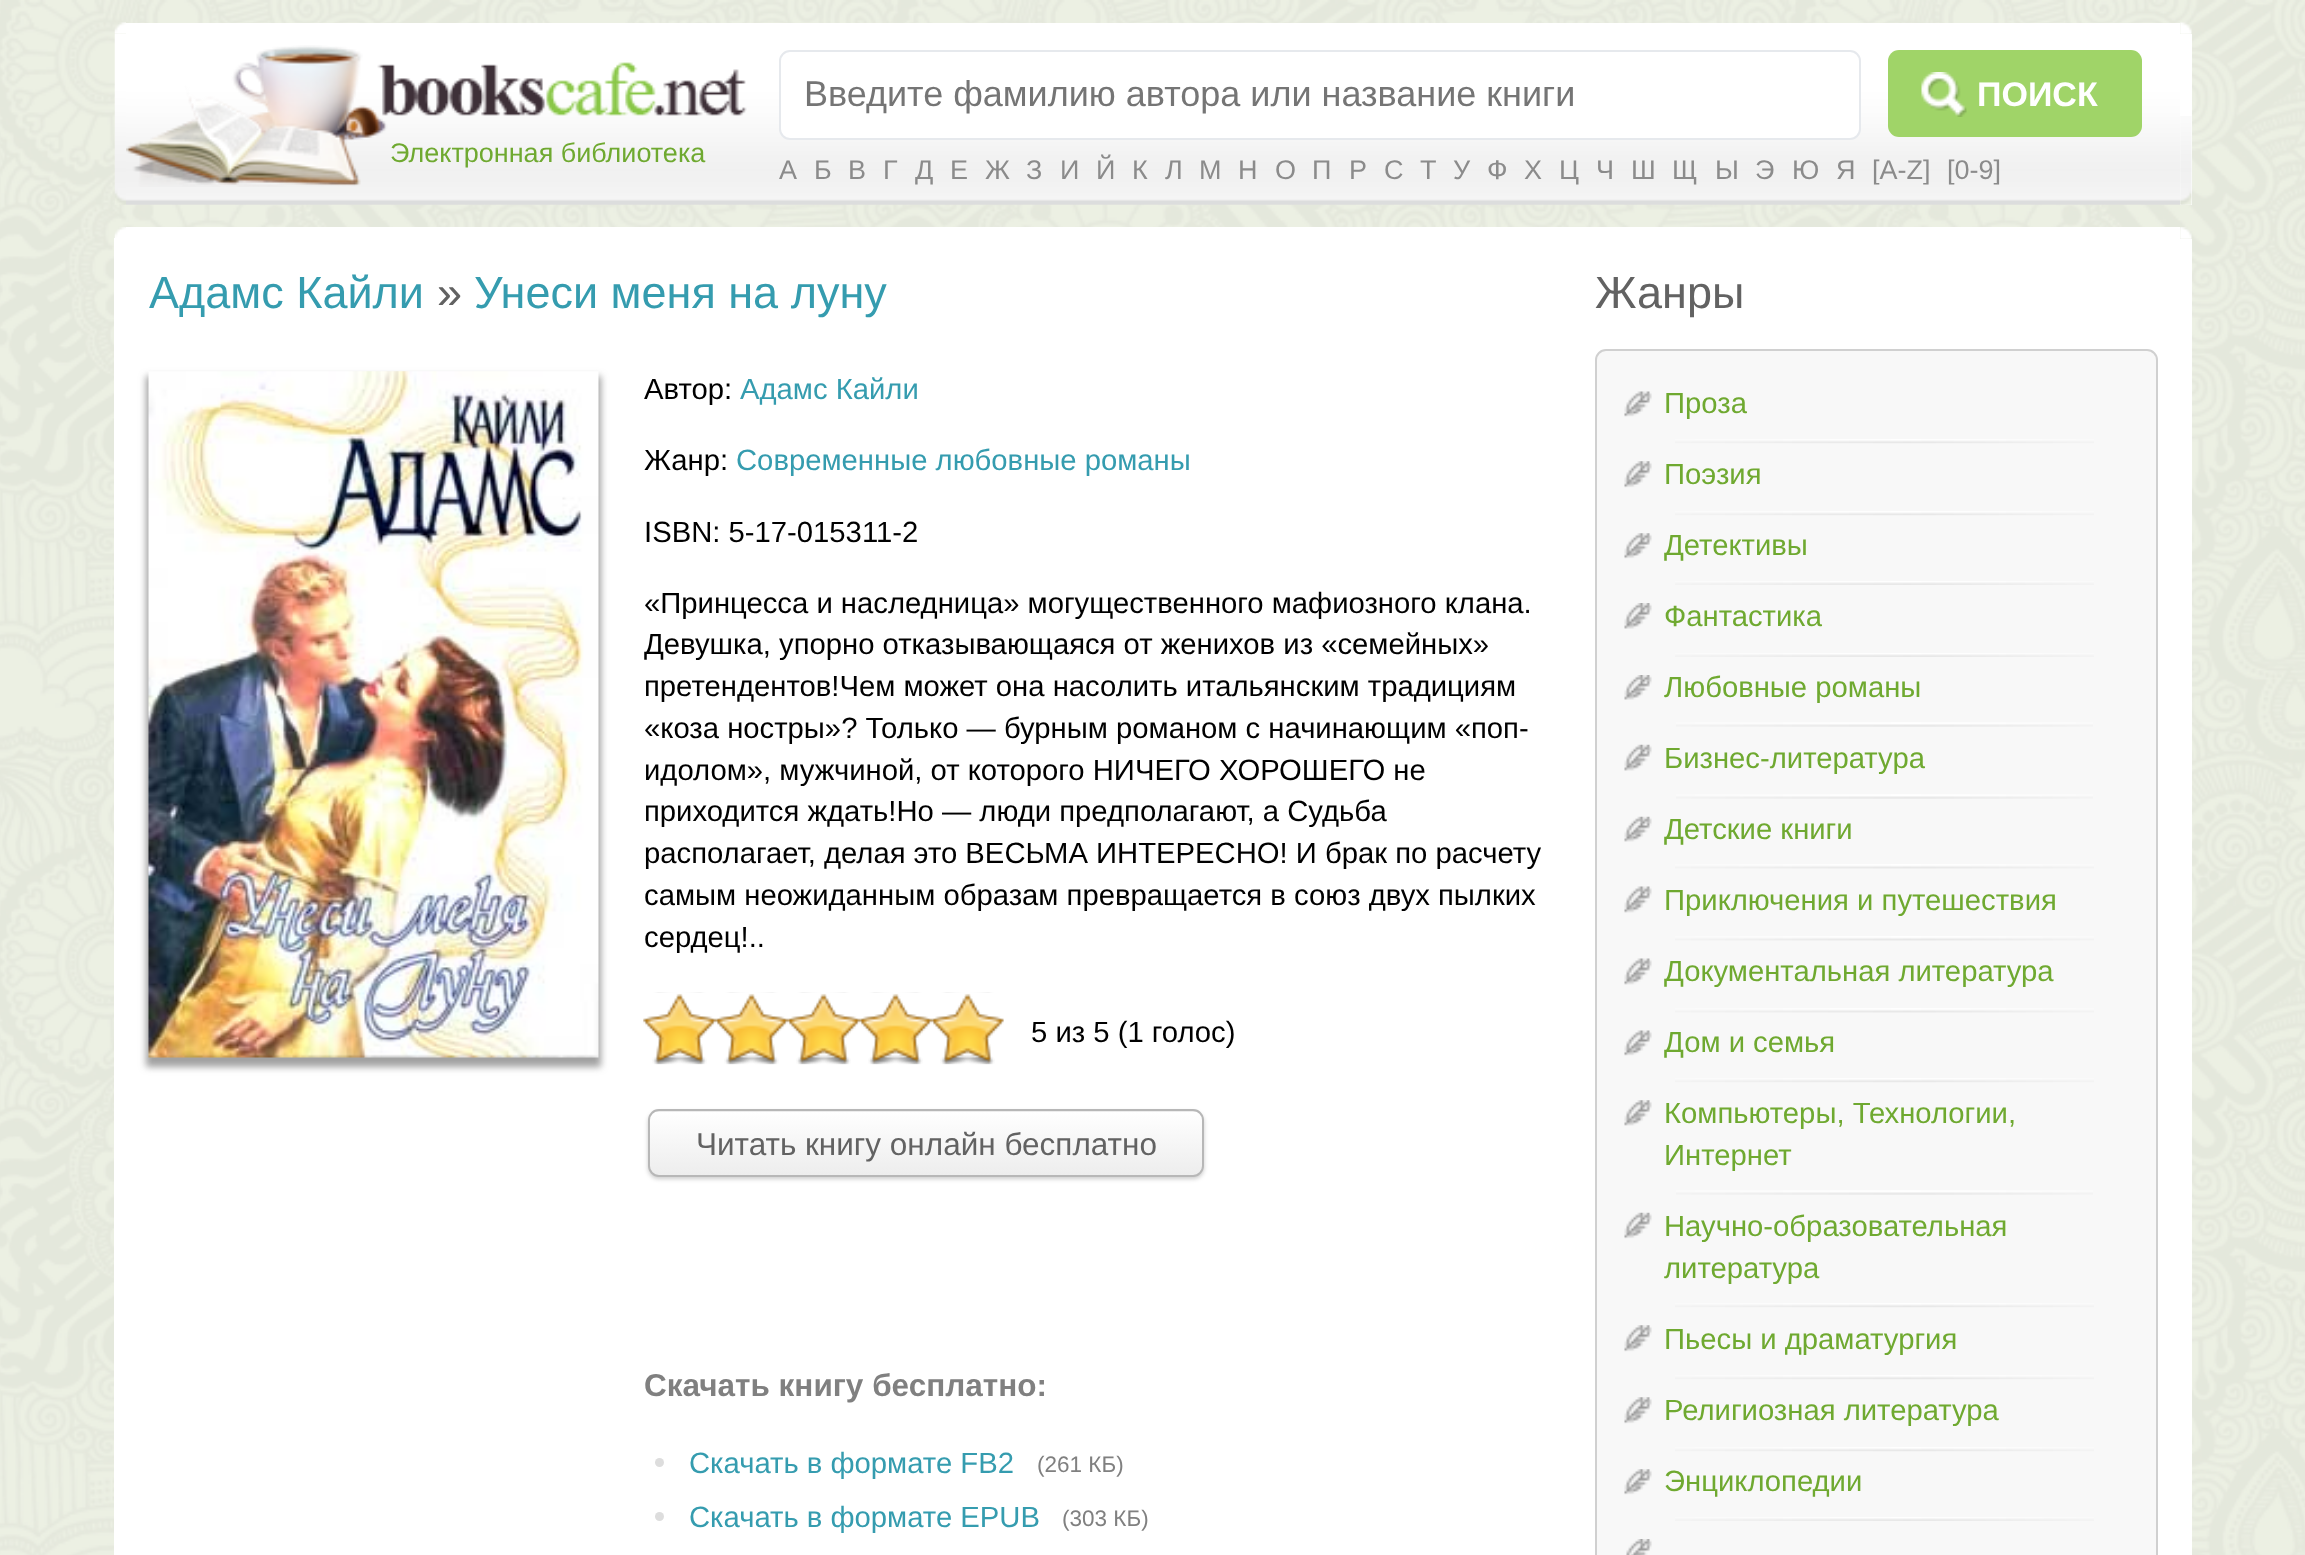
<?xml version="1.0" encoding="UTF-8"?>
<svg xmlns="http://www.w3.org/2000/svg" width="2305" height="1555">
    <defs>
        <filter id="blur1" x="-50%" y="-200%" width="200%" height="500%"><feGaussianBlur stdDeviation="3.5"/></filter>
        <filter id="blur2" x="-50%" y="-200%" width="200%" height="500%"><feGaussianBlur stdDeviation="2"/></filter>
        <clipPath id="clip1"><rect x="648" y="1109" width="556" height="68" rx="11"/></clipPath>
        <linearGradient id="g1" gradientUnits="userSpaceOnUse" x1="926" y1="1049" x2="926" y2="1112"><stop offset="0" stop-color="#FFFFFF"/><stop offset="1" stop-color="#EDEDED"/></linearGradient>
        <linearGradient id="g2" gradientUnits="userSpaceOnUse" x1="926" y1="1112" x2="926" y2="1175"><stop offset="0" stop-color="#FFFFFF"/><stop offset="1" stop-color="#EDEDED"/></linearGradient>
    </defs>
    <rect width="100%" height="100%" fill="#FFFFFF"/>
    <image x="0" y="0" width="2305" height="1555" href="img_01.png"/>
    <image x="114" y="22" width="12" height="12" href="img_02.png"/>
    <rect x="126" y="23" width="2054" height="11" fill="#FFFFFF"/>
    <image x="2180" y="22" width="12" height="12" href="img_03.png"/>
    <image x="114" y="34" width="12" height="171" href="img_04.png"/>
    <image x="126" y="34" width="2054" height="171" href="img_05.png"/>
    <rect x="780" y="51" width="1080" height="88" rx="10" fill="#FFFFFF" stroke="#E6E9ED" stroke-width="2"/>
    <text x="804" y="106" font-family="Liberation Sans" font-size="36" fill="#757575">Введите фамилию автора или название книги</text>
    <rect x="1888" y="50" width="254" height="87" rx="11" fill="#A0D468"/>
    <image x="1921" y="72" width="46" height="45" href="img_06.png"/>
    <text x="1977" y="106" font-family="Liberation Sans" font-size="34" font-weight="700" fill="#FFFFFF">ПОИСК</text>
    <image x="126" y="45" width="621" height="142" href="img_07.png"/>
    <text x="390" y="162" font-family="Liberation Sans" font-size="27" fill="#6FA930">Электронная библиотека</text>
    <text x="779" y="179" font-family="Liberation Sans" font-size="27" fill="#8B8B8B">А</text>
    <text x="814" y="179" font-family="Liberation Sans" font-size="27" fill="#8B8B8B">Б</text>
    <text x="848" y="179" font-family="Liberation Sans" font-size="27" fill="#8B8B8B">В</text>
    <text x="883" y="179" font-family="Liberation Sans" font-size="27" fill="#8B8B8B">Г</text>
    <text x="915" y="179" font-family="Liberation Sans" font-size="27" fill="#8B8B8B">Д</text>
    <text x="950" y="179" font-family="Liberation Sans" font-size="27" fill="#8B8B8B">Е</text>
    <text x="985" y="179" font-family="Liberation Sans" font-size="27" fill="#8B8B8B">Ж</text>
    <text x="1026" y="179" font-family="Liberation Sans" font-size="27" fill="#8B8B8B">З</text>
    <text x="1060" y="179" font-family="Liberation Sans" font-size="27" fill="#8B8B8B">И</text>
    <text x="1096" y="179" font-family="Liberation Sans" font-size="27" fill="#8B8B8B">Й</text>
    <text x="1132" y="179" font-family="Liberation Sans" font-size="27" fill="#8B8B8B">К</text>
    <text x="1165" y="179" font-family="Liberation Sans" font-size="27" fill="#8B8B8B">Л</text>
    <text x="1199" y="179" font-family="Liberation Sans" font-size="27" fill="#8B8B8B">М</text>
    <text x="1238" y="179" font-family="Liberation Sans" font-size="27" fill="#8B8B8B">Н</text>
    <text x="1275" y="179" font-family="Liberation Sans" font-size="27" fill="#8B8B8B">О</text>
    <text x="1312" y="179" font-family="Liberation Sans" font-size="27" fill="#8B8B8B">П</text>
    <text x="1349" y="179" font-family="Liberation Sans" font-size="27" fill="#8B8B8B">Р</text>
    <text x="1384" y="179" font-family="Liberation Sans" font-size="27" fill="#8B8B8B">С</text>
    <text x="1420" y="179" font-family="Liberation Sans" font-size="27" fill="#8B8B8B">Т</text>
    <text x="1453" y="179" font-family="Liberation Sans" font-size="27" fill="#8B8B8B">У</text>
    <text x="1487" y="179" font-family="Liberation Sans" font-size="27" fill="#8B8B8B">Ф</text>
    <text x="1524" y="179" font-family="Liberation Sans" font-size="27" fill="#8B8B8B">Х</text>
    <text x="1559" y="179" font-family="Liberation Sans" font-size="27" fill="#8B8B8B">Ц</text>
    <text x="1596" y="179" font-family="Liberation Sans" font-size="27" fill="#8B8B8B">Ч</text>
    <text x="1631" y="179" font-family="Liberation Sans" font-size="27" fill="#8B8B8B">Ш</text>
    <text x="1672" y="179" font-family="Liberation Sans" font-size="27" fill="#8B8B8B">Щ</text>
    <text x="1715" y="179" font-family="Liberation Sans" font-size="27" fill="#8B8B8B">Ы</text>
    <text x="1755" y="179" font-family="Liberation Sans" font-size="27" fill="#8B8B8B">Э</text>
    <text x="1792" y="179" font-family="Liberation Sans" font-size="27" fill="#8B8B8B">Ю</text>
    <text x="1836" y="179" font-family="Liberation Sans" font-size="27" fill="#8B8B8B">Я</text>
    <text x="1872" y="179" font-family="Liberation Sans" font-size="27" fill="#8B8B8B">[A-Z]</text>
    <text x="1947" y="179" font-family="Liberation Sans" font-size="27" fill="#8B8B8B">[0-9]</text>
    <rect x="2180" y="34" width="12" height="171" fill="#FFFFFF"/>
    <image x="2180" y="116" width="12" height="89" href="img_08.png"/>
    <image x="114" y="227" width="12" height="11" href="img_09.png"/>
    <rect x="126" y="227" width="2054" height="1328" fill="#FFFFFF"/>
    <image x="2180" y="227" width="12" height="12" href="img_10.png"/>
    <rect x="114" y="238" width="12" height="1317" fill="#FFFFFF"/>
    <text x="149" y="308" font-family="Liberation Sans" font-size="45" fill="#359CAF">Адамс Кайли</text>
    <text x="437" y="308" font-family="Liberation Sans" font-size="45" fill="#626262">»</text>
    <text x="474" y="308" font-family="Liberation Sans" font-size="45" fill="#359CAF">Унеси меня на луну</text>
    <rect x="146" y="376" width="455" height="691" fill="#A1A1A1" filter="url(#blur1)"/>
    <image x="148" y="371" width="451" height="687" href="img_11.png"/>
    <text x="644" y="399" font-family="Liberation Sans" font-size="29.25" fill="#000000">Автор:</text>
    <text x="740" y="399" font-family="Liberation Sans" font-size="29.25" fill="#359CAF">Адамс Кайли</text>
    <text x="644" y="470" font-family="Liberation Sans" font-size="29.25" fill="#000000">Жанр:</text>
    <text x="736" y="470" font-family="Liberation Sans" font-size="29.25" fill="#359CAF">Современные любовные романы</text>
    <text x="644" y="542" font-family="Liberation Sans" font-size="29.25" fill="#000000">ISBN: 5-17-015311-2</text>
    <text font-family="Liberation Sans" font-size="29.25" fill="#000000">
        <tspan x="644" y="613">«Принцесса и наследница» могущественного мафиозного клана.</tspan>
        <tspan x="644" y="654">Девушка, упорно отказывающаяся от женихов из «семейных»</tspan>
        <tspan x="644" y="696">претендентов!Чем может она насолить итальянским традициям</tspan>
        <tspan x="644" y="738">«коза ностры»? Только — бурным романом с начинающим «поп-</tspan>
        <tspan x="644" y="780">идолом», мужчиной, от которого НИЧЕГО ХОРОШЕГО не</tspan>
        <tspan x="644" y="821">приходится ждать!Но — люди предполагают, а Судьба</tspan>
        <tspan x="644" y="863">располагает, делая это ВЕСЬМА ИНТЕРЕСНО! И брак по расчету</tspan>
        <tspan x="644" y="905">самым неожиданным образам превращается в союз двух пылких</tspan>
        <tspan x="644" y="947">сердец!..</tspan>
    </text>
    <image x="643" y="994" width="361" height="70" href="img_13.png"/>
    <image x="643" y="992" width="361" height="73" href="img_12.png"/>
    <text x="1031" y="1042" font-family="Liberation Sans" font-size="29.25" fill="#000000">5 из 5 (1 голос)</text>
    <rect x="648" y="1112" width="556" height="67" rx="11" fill="#000000" fill-opacity="0.2" filter="url(#blur2)"/>
    <g clip-path="url(#clip1)">
        <rect x="648" y="1109" width="556" height="3" fill="url(#g1)"/>
        <rect x="648" y="1112" width="556" height="63" fill="url(#g2)"/>
    </g>
    <rect x="649" y="1110" width="554" height="66" rx="10" fill="none" stroke="#B7B7B7" stroke-width="2"/>
    <text x="696" y="1155" font-family="Liberation Sans" font-size="31.5" fill="#626262">Читать книгу онлайн бесплатно</text>
    <text x="644" y="1396" font-family="Liberation Sans" font-size="31.5" font-weight="700" fill="#808080">Скачать книгу бесплатно:</text>
    <circle cx="659.5" cy="1462.5" r="4.5" fill="#DDDDDD"/>
    <text x="689" y="1473" font-family="Liberation Sans" font-size="29.25" fill="#359CAF">Скачать в формате FB2</text>
    <text x="1037" y="1472" font-family="Liberation Sans" font-size="22.5" fill="#808080">(261 КБ)</text>
    <circle cx="659.5" cy="1516.5" r="4.5" fill="#DDDDDD"/>
    <text x="689" y="1527" font-family="Liberation Sans" font-size="29.25" fill="#359CAF">Скачать в формате EPUB</text>
    <text x="1062" y="1526" font-family="Liberation Sans" font-size="22.5" fill="#808080">(303 КБ)</text>
    <text x="1595" y="308" font-family="Liberation Sans" font-size="45" fill="#626262">Жанры</text>
    <rect x="1596" y="350" width="561" height="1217" rx="10" fill="#F8F8F8" stroke="#D0D0D0" stroke-width="2"/>
    <image x="1675" y="439" width="419" height="5" href="img_14.png"/>
    <image x="1624" y="391" width="28" height="26" href="img_15.png"/>
    <text x="1664" y="413" font-family="Liberation Sans" font-size="29.25" fill="#6FA930">Проза</text>
    <image x="1675" y="511" width="419" height="5" href="img_14.png"/>
    <image x="1624" y="461" width="28" height="27" href="img_16.png"/>
    <text x="1664" y="484" font-family="Liberation Sans" font-size="29.25" fill="#6FA930">Поэзия</text>
    <image x="1675" y="581" width="419" height="4" href="img_17.png"/>
    <image x="1624" y="533" width="28" height="26" href="img_18.png"/>
    <text x="1664" y="555" font-family="Liberation Sans" font-size="29.25" fill="#6FA930">Детективы</text>
    <image x="1675" y="653" width="419" height="4" href="img_17.png"/>
    <image x="1624" y="603" width="28" height="26" href="img_19.png"/>
    <text x="1664" y="626" font-family="Liberation Sans" font-size="29.25" fill="#6FA930">Фантастика</text>
    <image x="1676" y="722" width="417" height="5" href="img_20.png"/>
    <image x="1624" y="675" width="28" height="25" href="img_21.png"/>
    <text x="1664" y="697" font-family="Liberation Sans" font-size="29.25" fill="#6FA930">Любовные романы</text>
    <image x="1676" y="794" width="417" height="5" href="img_20.png"/>
    <image x="1624" y="744" width="28" height="27" href="img_22.png"/>
    <text x="1664" y="768" font-family="Liberation Sans" font-size="29.25" fill="#6FA930">Бизнес-литература</text>
    <image x="1675" y="864" width="419" height="5" href="img_23.png"/>
    <image x="1624" y="816" width="28" height="26" href="img_24.png"/>
    <text x="1664" y="839" font-family="Liberation Sans" font-size="29.25" fill="#6FA930">Детские книги</text>
    <image x="1675" y="936" width="419" height="5" href="img_23.png"/>
    <image x="1624" y="886" width="28" height="27" href="img_25.png"/>
    <text x="1664" y="910" font-family="Liberation Sans" font-size="29.25" fill="#6FA930">Приключения и путешествия</text>
    <image x="1675" y="1008" width="419" height="5" href="img_23.png"/>
    <image x="1624" y="958" width="28" height="27" href="img_25.png"/>
    <text x="1664" y="981" font-family="Liberation Sans" font-size="29.25" fill="#6FA930">Документальная литература</text>
    <image x="1675" y="1078" width="419" height="5" href="img_14.png"/>
    <image x="1624" y="1030" width="28" height="26" href="img_15.png"/>
    <text x="1664" y="1052" font-family="Liberation Sans" font-size="29.25" fill="#6FA930">Дом и семья</text>
    <image x="1676" y="1190" width="417" height="5" href="img_20.png"/>
    <image x="1624" y="1100" width="28" height="26" href="img_26.png"/>
    <text font-family="Liberation Sans" font-size="29.25" fill="#6FA930">
        <tspan x="1664" y="1123">Компьютеры, Технологии,</tspan>
        <tspan x="1664" y="1165">Интернет</tspan>
    </text>
    <image x="1675" y="1303" width="419" height="5" href="img_14.png"/>
    <image x="1624" y="1212" width="28" height="27" href="img_27.png"/>
    <text font-family="Liberation Sans" font-size="29.25" fill="#6FA930">
        <tspan x="1664" y="1236">Научно-образовательная</tspan>
        <tspan x="1664" y="1278">литература</tspan>
    </text>
    <image x="1675" y="1375" width="419" height="5" href="img_14.png"/>
    <image x="1624" y="1325" width="28" height="27" href="img_16.png"/>
    <text x="1664" y="1349" font-family="Liberation Sans" font-size="29.25" fill="#6FA930">Пьесы и драматургия</text>
    <image x="1675" y="1447" width="419" height="5" href="img_14.png"/>
    <image x="1624" y="1397" width="28" height="27" href="img_16.png"/>
    <text x="1664" y="1420" font-family="Liberation Sans" font-size="29.25" fill="#6FA930">Религиозная литература</text>
    <image x="1675" y="1517" width="419" height="4" href="img_17.png"/>
    <image x="1624" y="1469" width="28" height="26" href="img_18.png"/>
    <text x="1664" y="1491" font-family="Liberation Sans" font-size="29.25" fill="#6FA930">Энциклопедии</text>
    <image x="1626" y="1539" width="26" height="16" href="img_28.png"/>
    <rect x="2180" y="239" width="12" height="1316" fill="#FFFFFF"/>
    <image x="2180" y="238" width="12" height="1" href="img_29.png"/>
</svg>
